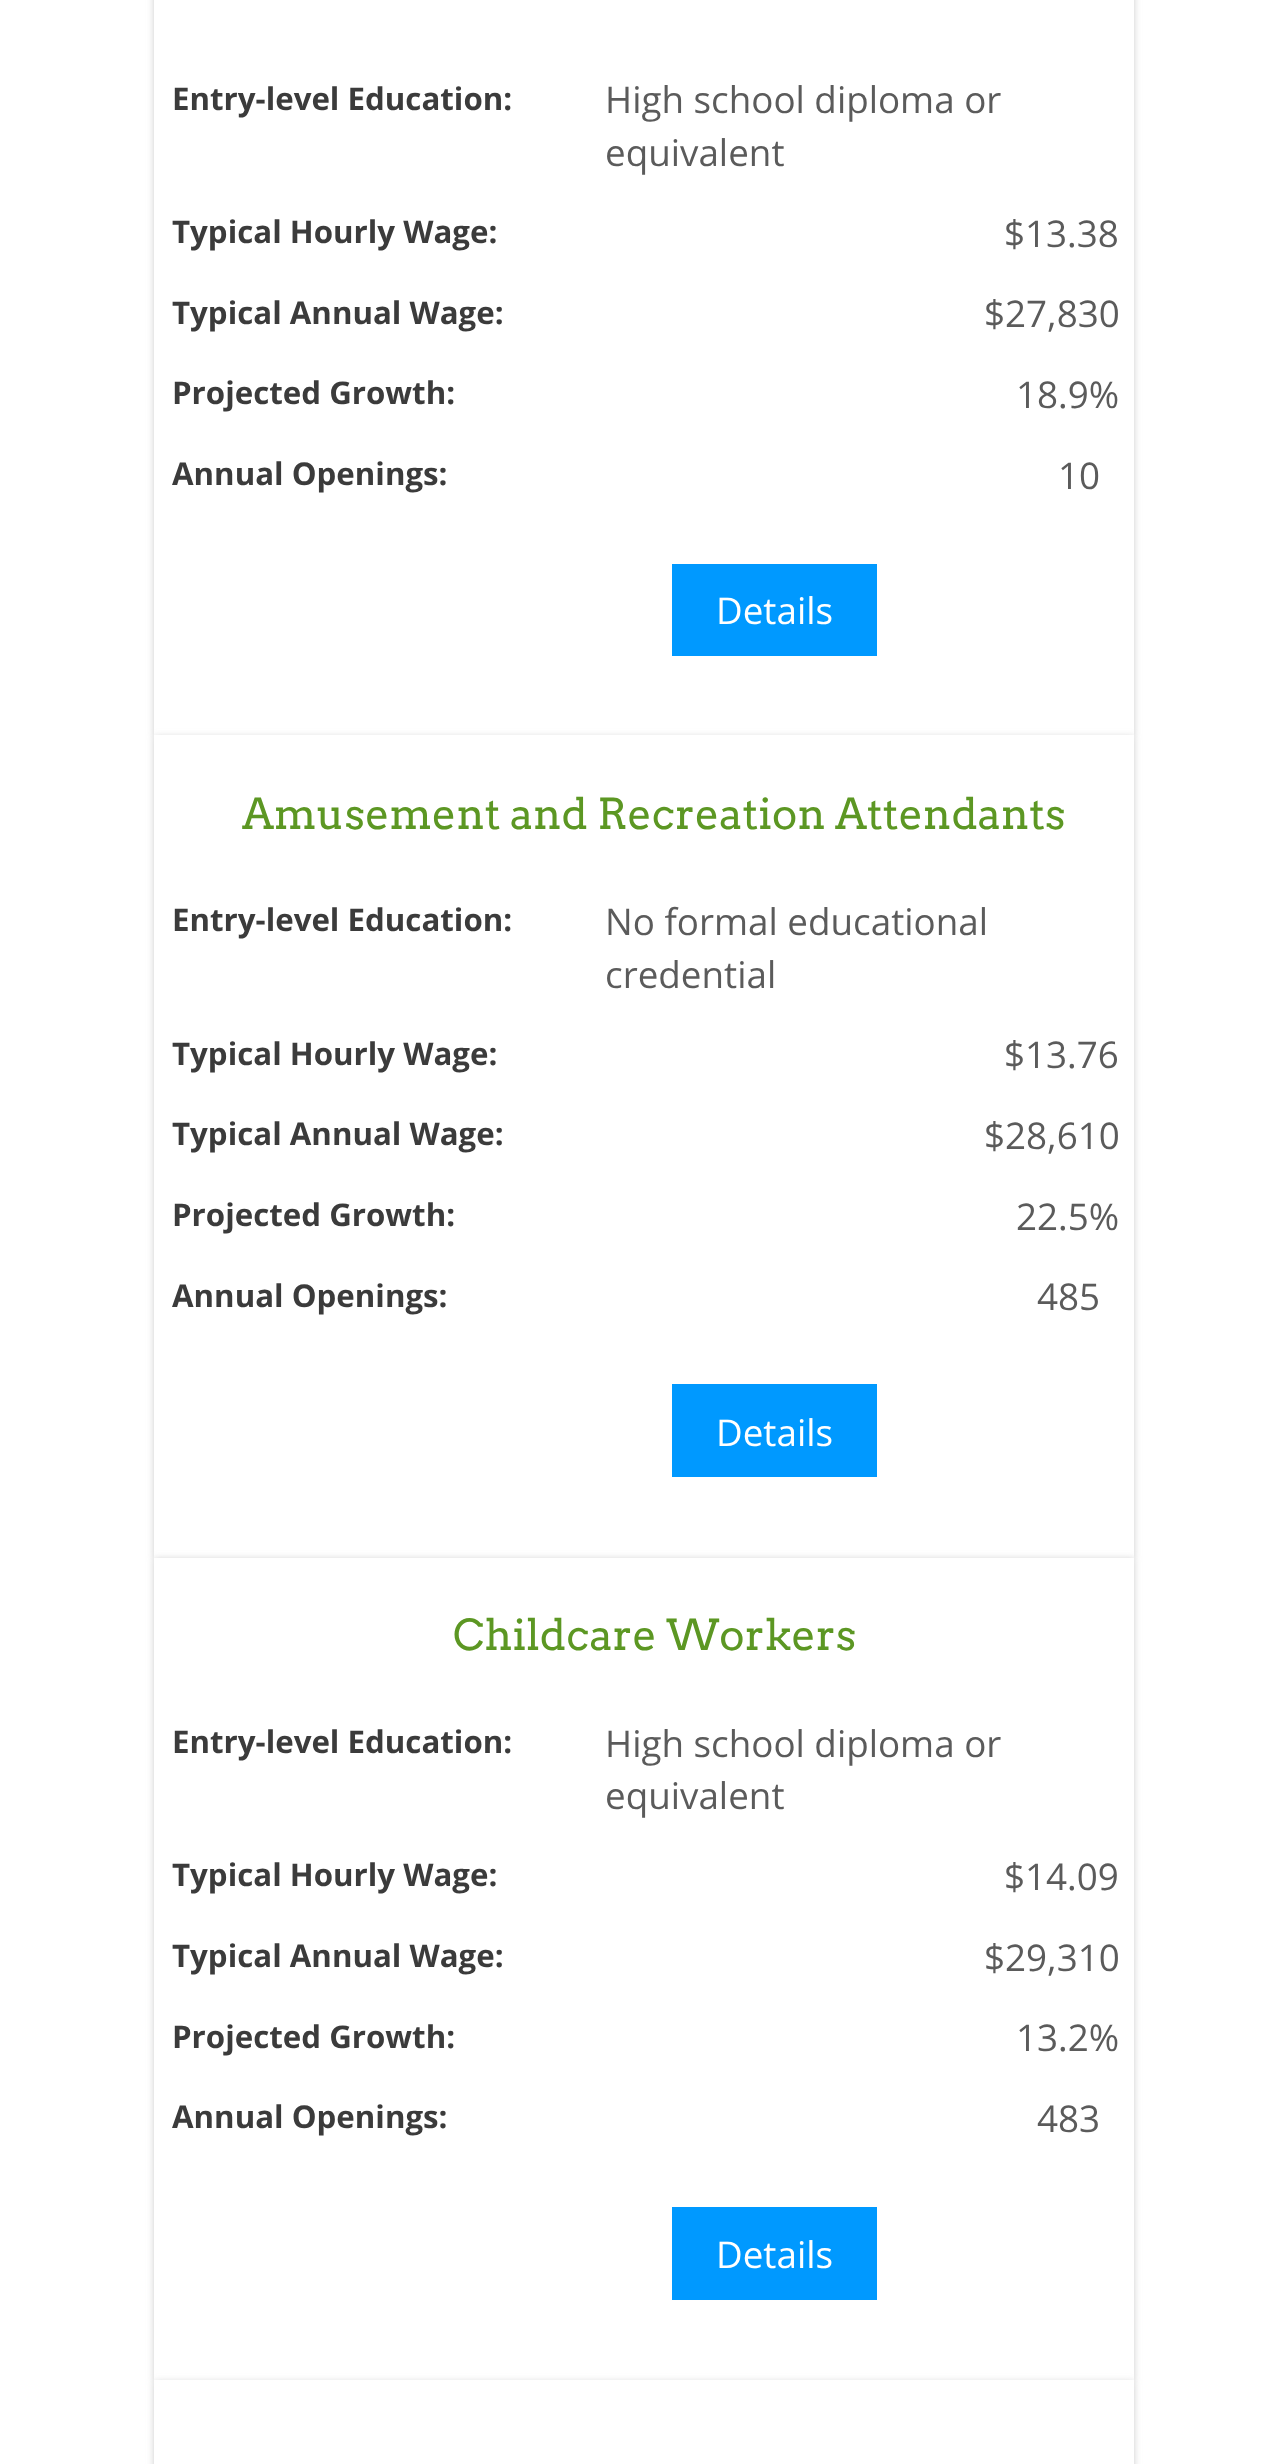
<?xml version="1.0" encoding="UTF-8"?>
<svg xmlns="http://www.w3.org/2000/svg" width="1288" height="2464">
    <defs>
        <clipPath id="clip1"><path d="M 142 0 H 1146 V 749 H 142 Z M 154 -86 H 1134 V 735 H 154 Z" clip-rule="evenodd"/></clipPath>
        <filter id="blur1" x="-50%" y="-200%" width="200%" height="500%"><feGaussianBlur stdDeviation="3.5"/></filter>
    </defs>
    <rect width="100%" height="100%" fill="#FFFFFF"/>
    <g clip-path="url(#clip1)">
        <rect x="154" y="-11" width="980" height="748" fill="#CCCCCC" filter="url(#blur1)"/>
    </g>
    <text x="172" y="110" font-family="Open Sans" font-size="31.25" font-weight="700" fill="#3B3B3B">Entry-level Education:</text>
    <text font-family="Open Sans" font-size="36.8" fill="#5B5B5B">
        <tspan x="605" y="113">High school diploma or</tspan>
        <tspan x="605" y="166">equivalent</tspan>
    </text>
    <text x="172" y="243" font-family="Open Sans" font-size="31.25" font-weight="700" fill="#3B3B3B">Typical Hourly Wage:</text>
    <text x="1004" y="247" font-family="Open Sans" font-size="36.8" fill="#5B5B5B">$13.38</text>
    <text x="172" y="324" font-family="Open Sans" font-size="31.25" font-weight="700" fill="#3B3B3B">Typical Annual Wage:</text>
    <text x="984" y="327" font-family="Open Sans" font-size="36.8" fill="#5B5B5B">$27,830</text>
    <text x="172" y="404" font-family="Open Sans" font-size="31.25" font-weight="700" fill="#3B3B3B">Projected Growth:</text>
    <text x="1016" y="408" font-family="Open Sans" font-size="36.8" fill="#5B5B5B">18.9%</text>
    <text x="172" y="485" font-family="Open Sans" font-size="31.25" font-weight="700" fill="#3B3B3B">Annual Openings:</text>
    <text x="1058" y="489" font-family="Open Sans" font-size="36.8" fill="#5B5B5B">10</text>
    <rect x="672" y="564" width="205" height="92" fill="#0099FF"/>
    <text x="716" y="624" font-family="Open Sans" font-size="36.8" fill="#FFFFFF">Details</text>
    <rect x="154" y="737" width="980" height="822" fill="#CCCCCC" filter="url(#blur1)"/>
    <rect x="154" y="735" width="980" height="823" fill="#FFFFFF"/>
    <text x="242" y="829" font-family="Arvo" font-size="42.5" fill="#5C9723">Amusement and Recreation Attendants</text>
    <text x="172" y="931" font-family="Open Sans" font-size="31.25" font-weight="700" fill="#3B3B3B">Entry-level Education:</text>
    <text font-family="Open Sans" font-size="36.8" fill="#5B5B5B">
        <tspan x="605" y="935">No formal educational</tspan>
        <tspan x="605" y="988">credential</tspan>
    </text>
    <text x="172" y="1065" font-family="Open Sans" font-size="31.25" font-weight="700" fill="#3B3B3B">Typical Hourly Wage:</text>
    <text x="1004" y="1068" font-family="Open Sans" font-size="36.8" fill="#5B5B5B">$13.76</text>
    <text x="172" y="1145" font-family="Open Sans" font-size="31.25" font-weight="700" fill="#3B3B3B">Typical Annual Wage:</text>
    <text x="984" y="1149" font-family="Open Sans" font-size="36.8" fill="#5B5B5B">$28,610</text>
    <text x="172" y="1226" font-family="Open Sans" font-size="31.25" font-weight="700" fill="#3B3B3B">Projected Growth:</text>
    <text x="1016" y="1230" font-family="Open Sans" font-size="36.8" fill="#5B5B5B">22.5%</text>
    <text x="172" y="1307" font-family="Open Sans" font-size="31.25" font-weight="700" fill="#3B3B3B">Annual Openings:</text>
    <text x="1037" y="1310" font-family="Open Sans" font-size="36.8" fill="#5B5B5B">485</text>
    <rect x="672" y="1384" width="205" height="93" fill="#0099FF"/>
    <text x="716" y="1446" font-family="Open Sans" font-size="36.8" fill="#FFFFFF">Details</text>
    <rect x="154" y="1559" width="980" height="823" fill="#CCCCCC" filter="url(#blur1)"/>
    <rect x="154" y="1558" width="980" height="822" fill="#FFFFFF"/>
    <text x="453" y="1650" font-family="Arvo" font-size="42.5" fill="#5C9723">Childcare Workers</text>
    <text x="172" y="1753" font-family="Open Sans" font-size="31.25" font-weight="700" fill="#3B3B3B">Entry-level Education:</text>
    <text font-family="Open Sans" font-size="36.8" fill="#5B5B5B">
        <tspan x="605" y="1757">High school diploma or</tspan>
        <tspan x="605" y="1809">equivalent</tspan>
    </text>
    <text x="172" y="1886" font-family="Open Sans" font-size="31.25" font-weight="700" fill="#3B3B3B">Typical Hourly Wage:</text>
    <text x="1004" y="1890" font-family="Open Sans" font-size="36.8" fill="#5B5B5B">$14.09</text>
    <text x="172" y="1967" font-family="Open Sans" font-size="31.25" font-weight="700" fill="#3B3B3B">Typical Annual Wage:</text>
    <text x="984" y="1971" font-family="Open Sans" font-size="36.8" fill="#5B5B5B">$29,310</text>
    <text x="172" y="2048" font-family="Open Sans" font-size="31.25" font-weight="700" fill="#3B3B3B">Projected Growth:</text>
    <text x="1016" y="2051" font-family="Open Sans" font-size="36.8" fill="#5B5B5B">13.2%</text>
    <text x="172" y="2128" font-family="Open Sans" font-size="31.25" font-weight="700" fill="#3B3B3B">Annual Openings:</text>
    <text x="1037" y="2132" font-family="Open Sans" font-size="36.8" fill="#5B5B5B">483</text>
    <rect x="672" y="2207" width="205" height="93" fill="#0099FF"/>
    <text x="716" y="2268" font-family="Open Sans" font-size="36.8" fill="#FFFFFF">Details</text>
    <rect x="154" y="2382" width="980" height="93" fill="#CCCCCC" filter="url(#blur1)"/>
    <rect x="154" y="2380" width="980" height="84" fill="#FFFFFF"/>
</svg>
